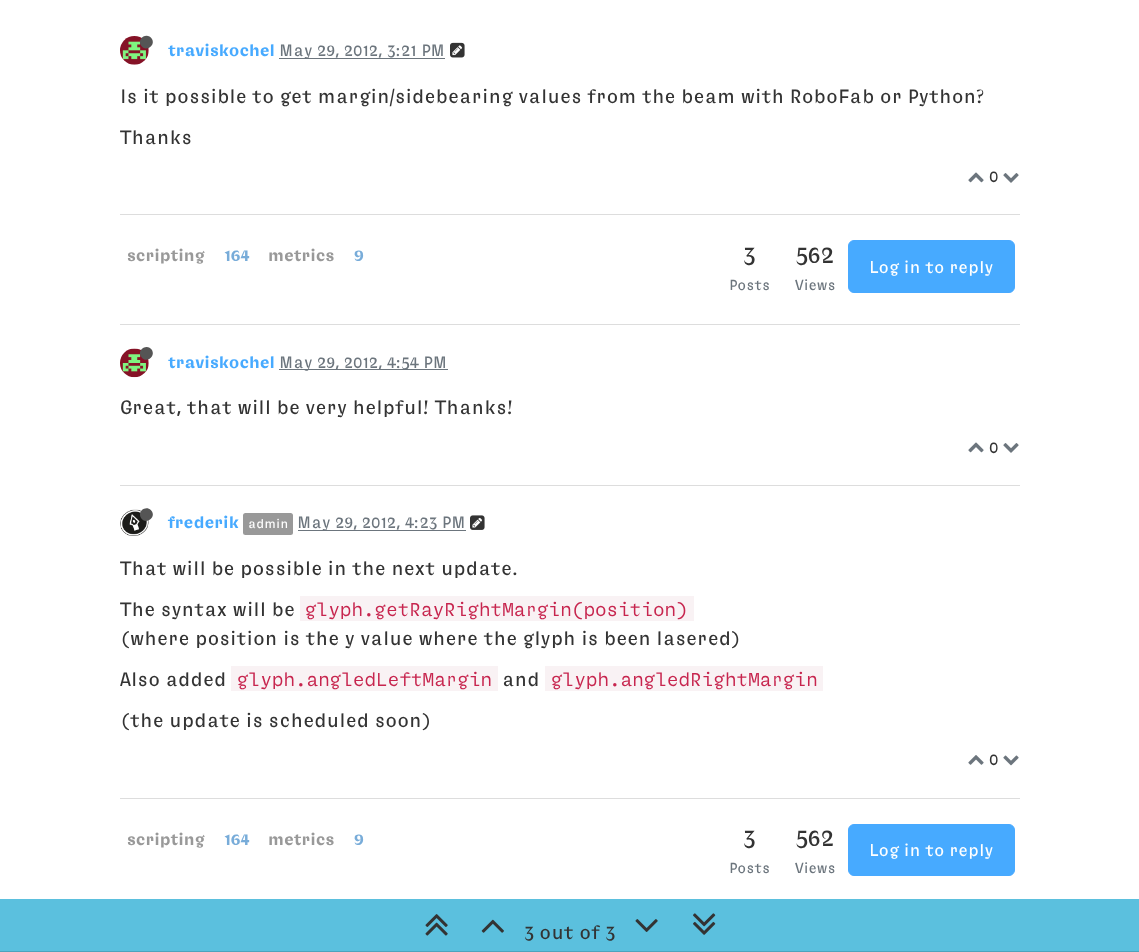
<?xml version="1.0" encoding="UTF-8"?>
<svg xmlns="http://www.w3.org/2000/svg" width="1139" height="952">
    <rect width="100%" height="100%" fill="#FFFFFF"/>
    <image x="120" y="36" width="29" height="29" href="img_01.png"/>
    <path d="M 152 39 C 156 46 145 52.5 141 45.5 C 136.5 38 147.5 31.5 152 39 Z" fill="#555555"/>
    <text x="168" y="56" font-family="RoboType" font-size="17" font-weight="700" fill="#47AAFF">traviskochel</text>
    <rect x="279" y="58" width="166" height="1" fill="#6C757D"/>
    <text x="279" y="56" font-family="RoboType" font-size="17" fill="#6C757D">May 29, 2012, 3:21 PM</text>
    <image x="450" y="42" width="15" height="16" href="img_02.png"/>
    <text x="120" y="103" font-family="RoboType" font-size="20" fill="#333333">Is it possible to get margin/sidebearing values from the beam with RoboFab or Python?</text>
    <text x="120" y="144" font-family="RoboType" font-size="20" fill="#333333">Thanks</text>
    <image x="968" y="172" width="16" height="11" href="img_03.png"/>
    <text x="989" y="182" font-family="RoboType" font-size="17" fill="#333333">0</text>
    <image x="1003" y="173" width="16" height="10" href="img_04.png"/>
    <rect x="120" y="214" width="900" height="1" fill="#DDDDDD"/>
    <text x="127" y="261" font-family="RoboType" font-size="17" font-weight="700" fill="#999999">scripting</text>
    <text x="224" y="261" font-family="RoboType" font-size="17" font-weight="700" fill="#78ACD9">164</text>
    <text x="268" y="261" font-family="RoboType" font-size="17" font-weight="700" fill="#999999">metrics</text>
    <text x="354" y="261" font-family="RoboType" font-size="17" font-weight="700" fill="#78ACD9">9</text>
    <text x="743" y="263" font-family="RoboType" font-size="25" fill="#333333">3</text>
    <text x="729" y="290" font-family="RoboType" font-size="15" fill="#6C757D">Posts</text>
    <text x="796" y="263" font-family="RoboType" font-size="25" fill="#333333">562</text>
    <text x="795" y="290" font-family="RoboType" font-size="15" fill="#6C757D">Views</text>
    <rect x="848.5" y="240.5" width="166" height="52" rx="5.5" fill="#47AAFF" stroke="#48A9FF"/>
    <text x="869" y="273" font-family="RoboType" font-size="17.5" fill="#FFFFFF">Log in to reply</text>
    <rect x="120" y="324" width="900" height="1" fill="#DDDDDD"/>
    <image x="120" y="348" width="29" height="30" href="img_05.png"/>
    <path d="M 152 350 C 156 357.5 145 364 141 356.5 C 136.5 349.5 147.5 343 152 350 Z" fill="#555555"/>
    <text x="168" y="368" font-family="RoboType" font-size="17" font-weight="700" fill="#47AAFF">traviskochel</text>
    <rect x="279" y="369" width="169" height="1" fill="#6C757D"/>
    <text x="279" y="368" font-family="RoboType" font-size="17" fill="#6C757D">May 29, 2012, 4:54 PM</text>
    <text x="120" y="414" font-family="RoboType" font-size="20" fill="#333333">Great, that will be very helpful! Thanks!</text>
    <image x="968" y="442" width="16" height="11" href="img_03.png"/>
    <text x="989" y="453" font-family="RoboType" font-size="17" fill="#333333">0</text>
    <image x="1003" y="443" width="16" height="10" href="img_04.png"/>
    <rect x="120" y="485" width="900" height="1" fill="#DDDDDD"/>
    <image x="120" y="509" width="29" height="27" href="img_06.png"/>
    <path d="M 152 511.5 C 156 518.5 145 525 141 518 C 136.5 510.5 147.5 504 152 511.5 Z" fill="#555555"/>
    <text x="168" y="528" font-family="RoboType" font-size="17" font-weight="700" fill="#47AAFF">frederik</text>
    <rect x="243" y="513" width="50" height="22" rx="2.5" fill="#999999"/>
    <text x="248" y="528" font-family="RoboType" font-size="13" fill="#FFFFFF">admin</text>
    <rect x="298" y="530" width="168" height="1" fill="#6C757D"/>
    <text x="297" y="528" font-family="RoboType" font-size="17" fill="#6C757D">May 29, 2012, 4:23 PM</text>
    <image x="470" y="515" width="15" height="15" href="img_07.png"/>
    <text x="120" y="575" font-family="RoboType" font-size="20" fill="#333333">That will be possible in the next update.</text>
    <text x="120" y="616" font-family="RoboType" font-size="20" fill="#333333">The syntax will be</text>
    <rect x="300" y="596" width="394" height="25" fill="#F9F2F4"/>
    <text x="305" y="616" font-family="RoboType" font-size="20" font-weight="300" fill="#C7254E">glyph.getRayRightMargin(position)</text>
    <text x="120" y="645" font-family="RoboType" font-size="20" fill="#333333">(where position is the y value where the glyph is been lasered)</text>
    <text x="120" y="686" font-family="RoboType" font-size="20" fill="#333333">Also added</text>
    <rect x="231" y="666" width="267" height="25" fill="#F9F2F4"/>
    <text x="237" y="686" font-family="RoboType" font-size="20" font-weight="300" fill="#C7254E">glyph.angledLeftMargin</text>
    <text x="502" y="686" font-family="RoboType" font-size="20" fill="#333333">and</text>
    <rect x="545" y="666" width="278" height="25" fill="#F9F2F4"/>
    <text x="551" y="686" font-family="RoboType" font-size="20" font-weight="300" fill="#C7254E">glyph.angledRightMargin</text>
    <text x="120" y="727" font-family="RoboType" font-size="20" fill="#333333">(the update is scheduled soon)</text>
    <image x="968" y="755" width="16" height="10" href="img_08.png"/>
    <text x="989" y="765" font-family="RoboType" font-size="17" fill="#333333">0</text>
    <image x="1003" y="755" width="16" height="11" href="img_09.png"/>
    <rect x="120" y="798" width="900" height="1" fill="#DDDDDD"/>
    <text x="127" y="845" font-family="RoboType" font-size="17" font-weight="700" fill="#999999">scripting</text>
    <text x="224" y="845" font-family="RoboType" font-size="17" font-weight="700" fill="#78ACD9">164</text>
    <text x="268" y="845" font-family="RoboType" font-size="17" font-weight="700" fill="#999999">metrics</text>
    <text x="354" y="845" font-family="RoboType" font-size="17" font-weight="700" fill="#78ACD9">9</text>
    <text x="743" y="846" font-family="RoboType" font-size="25" fill="#333333">3</text>
    <text x="729" y="873" font-family="RoboType" font-size="15" fill="#6C757D">Posts</text>
    <text x="796" y="846" font-family="RoboType" font-size="25" fill="#333333">562</text>
    <text x="795" y="873" font-family="RoboType" font-size="15" fill="#6C757D">Views</text>
    <rect x="848.5" y="824.5" width="166" height="51" rx="5.5" fill="#47AAFF" stroke="#48A9FF"/>
    <text x="869" y="856" font-family="RoboType" font-size="17.5" fill="#FFFFFF">Log in to reply</text>
    <rect x="0" y="899" width="1139" height="52" fill="#5BC0DE"/>
    <rect x="0" y="951" width="1139" height="1" fill="#4DA3BD"/>
    <image x="425" y="914" width="23" height="22" href="img_10.png"/>
    <image x="481" y="919" width="23" height="14" href="img_11.png"/>
    <text x="524" y="939" font-family="RoboType" font-size="20" fill="#333333">3 out of 3</text>
    <image x="635" y="919" width="23" height="13" href="img_12.png"/>
    <image x="693" y="913" width="23" height="22" href="img_13.png"/>
</svg>
